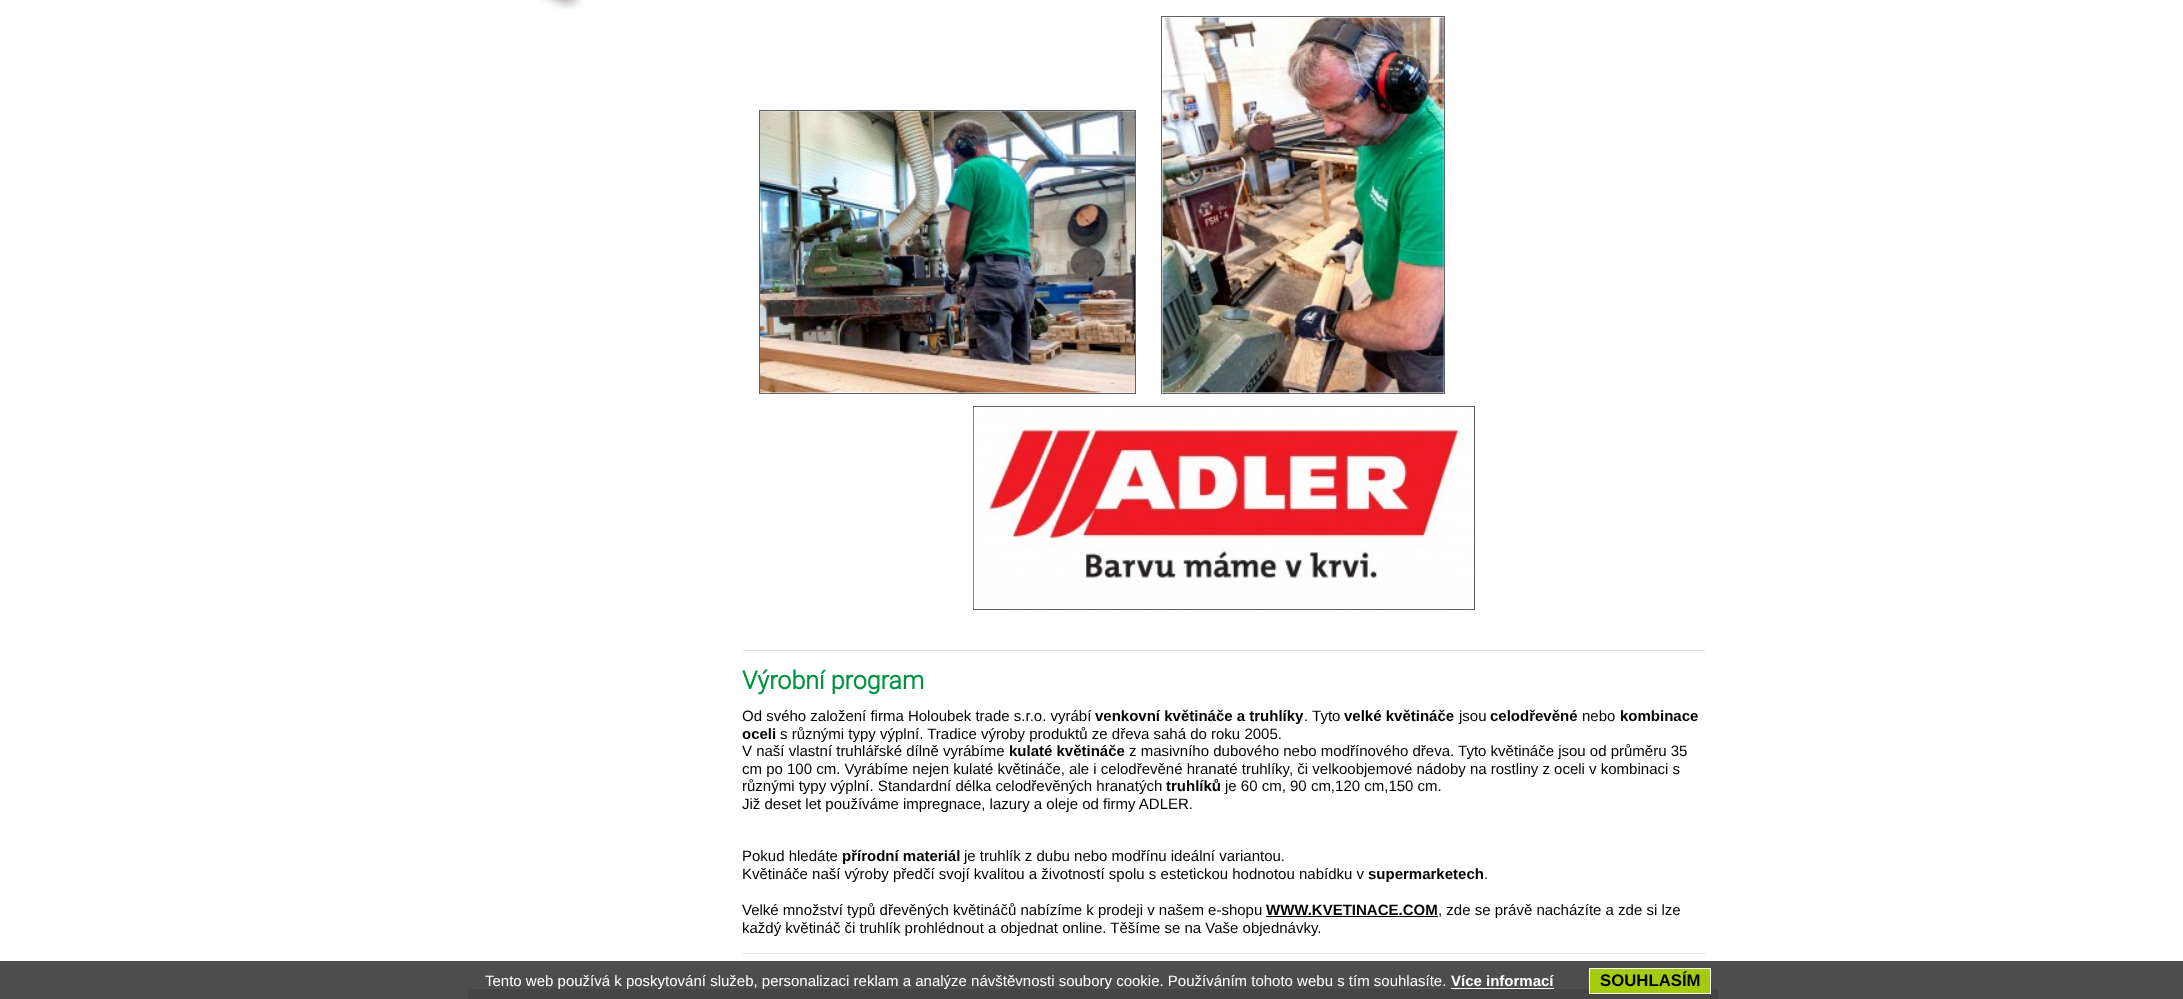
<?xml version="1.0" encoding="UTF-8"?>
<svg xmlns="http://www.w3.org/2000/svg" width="2183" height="999">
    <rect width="100%" height="100%" fill="#FFFFFF"/>
    <rect x="0" y="961" width="2183" height="38" fill="#4D4D4D"/>
    <image x="541" y="0" width="43" height="10" href="img_01.png"/>
    <rect x="1161.5" y="16.5" width="283" height="377" fill="none" stroke="#5F6265"/>
    <rect x="759.5" y="110.5" width="376" height="283" fill="none" stroke="#5F6265"/>
    <image x="1162" y="17" width="282" height="376" href="img_02.png"/>
    <image x="760" y="111" width="375" height="282" href="img_03.png"/>
    <rect x="973.5" y="406.5" width="501" height="203" fill="none" stroke="#5F6265"/>
    <image x="973" y="407" width="501" height="202" href="img_04.png"/>
    <rect x="743" y="650" width="962" height="1" fill="#E2E2E2"/>
    <text x="742" y="689" font-family="Roboto" font-size="25" font-weight="700" fill="#00923F">Výrobní program</text>
    <text x="742" y="721" font-family="Liberation Sans" font-size="15" fill="#000000">Od svého založení firma Holoubek trade s.r.o. vyrábí</text>
    <text x="1095" y="721" font-family="Liberation Sans" font-size="15" font-weight="700" fill="#000000">venkovní květináče a truhlíky</text>
    <text x="1304" y="721" font-family="Liberation Sans" font-size="15" fill="#000000">. Tyto</text>
    <text x="1344" y="721" font-family="Liberation Sans" font-size="15" font-weight="700" fill="#000000">velké květináče</text>
    <text x="1459" y="721" font-family="Liberation Sans" font-size="15" fill="#000000">jsou</text>
    <text x="1490" y="721" font-family="Liberation Sans" font-size="15" font-weight="700" fill="#000000">celodřevěné</text>
    <text x="1582" y="721" font-family="Liberation Sans" font-size="15" fill="#000000">nebo</text>
    <text x="1620" y="721" font-family="Liberation Sans" font-size="15" font-weight="700" fill="#000000">kombinace</text>
    <text x="742" y="739" font-family="Liberation Sans" font-size="15" font-weight="700" fill="#000000">oceli</text>
    <text x="780" y="739" font-family="Liberation Sans" font-size="15" fill="#000000">s různými typy výplní. Tradice výroby produktů ze dřeva sahá do roku 2005.</text>
    <text x="742" y="756" font-family="Liberation Sans" font-size="15" fill="#000000">V naší vlastní truhlářské dílně vyrábíme</text>
    <text x="1009" y="756" font-family="Liberation Sans" font-size="15" font-weight="700" fill="#000000">kulaté květináče</text>
    <text x="1129" y="756" font-family="Liberation Sans" font-size="15" fill="#000000">z masivního dubového nebo modřínového dřeva. Tyto květináče jsou od průměru 35</text>
    <text font-family="Liberation Sans" font-size="15" fill="#000000">
        <tspan x="742" y="774">cm po 100 cm. Vyrábíme nejen kulaté květináče, ale i celodřevěné hranaté truhlíky, či velkoobjemové nádoby na rostliny z oceli v kombinaci s</tspan>
        <tspan x="742" y="791">různými typy výplní. Standardní délka celodřevěných hranatých</tspan>
    </text>
    <text x="1166" y="791" font-family="Liberation Sans" font-size="15" font-weight="700" fill="#000000">truhlíků</text>
    <text x="1225" y="791" font-family="Liberation Sans" font-size="15" fill="#000000">je 60 cm, 90 cm,120 cm,150 cm.</text>
    <text x="742" y="809" font-family="Liberation Sans" font-size="15" fill="#000000">Již deset let používáme impregnace, lazury a oleje od firmy ADLER.</text>
    <text x="742" y="861" font-family="Liberation Sans" font-size="15" fill="#000000">Pokud hledáte</text>
    <text x="842" y="861" font-family="Liberation Sans" font-size="15" font-weight="700" fill="#000000">přírodní materiál</text>
    <text x="964" y="861" font-family="Liberation Sans" font-size="15" fill="#000000">je truhlík z dubu nebo modřínu ideální variantou.</text>
    <text x="742" y="879" font-family="Liberation Sans" font-size="15" fill="#000000">Květináče naší výroby předčí svojí kvalitou a životností spolu s estetickou hodnotou nabídku v</text>
    <text x="1368" y="879" font-family="Liberation Sans" font-size="15" font-weight="700" fill="#000000">supermarketech</text>
    <text x="1484" y="879" font-family="Liberation Sans" font-size="15" fill="#000000">.</text>
    <text x="742" y="915" font-family="Liberation Sans" font-size="15" fill="#000000">Velké množství typů dřevěných květináčů nabízíme k prodeji v našem e-shopu</text>
    <text x="1266" y="915" font-family="Liberation Sans" font-size="15" font-weight="700" fill="#000000">WWW.KVETINACE.COM</text>
    <rect x="1266" y="916" width="172" height="1" fill="#000000"/>
    <text x="1438" y="915" font-family="Liberation Sans" font-size="15" fill="#000000">, zde se právě nacházíte a zde si lze</text>
    <text x="742" y="933" font-family="Liberation Sans" font-size="15" fill="#000000">každý květináč či truhlík prohlédnout a objednat online. Těšíme se na Vaše objednávky.</text>
    <rect x="743" y="953" width="962" height="1" fill="#E2E2E2"/>
    <rect x="468" y="989" width="1250" height="10" fill="#454545"/>
    <text x="485" y="986" font-family="Liberation Sans" font-size="15" fill="#FFFFFF">Tento web používá k poskytování služeb, personalizaci reklam a analýze návštěvnosti soubory cookie. Používáním tohoto webu s tím souhlasíte.</text>
    <text x="1451" y="986" font-family="Liberation Sans" font-size="15" font-weight="700" fill="#FFFFFF">Více informací</text>
    <rect x="1451" y="988" width="103" height="1" fill="#FFFFFF"/>
    <rect x="1589.5" y="968.5" width="121" height="25" fill="#A4CB0C" stroke="#FFFFFF"/>
    <text x="1600" y="986" font-family="Liberation Sans" font-size="16.75" font-weight="700" fill="#000000">SOUHLASÍM</text>
</svg>
